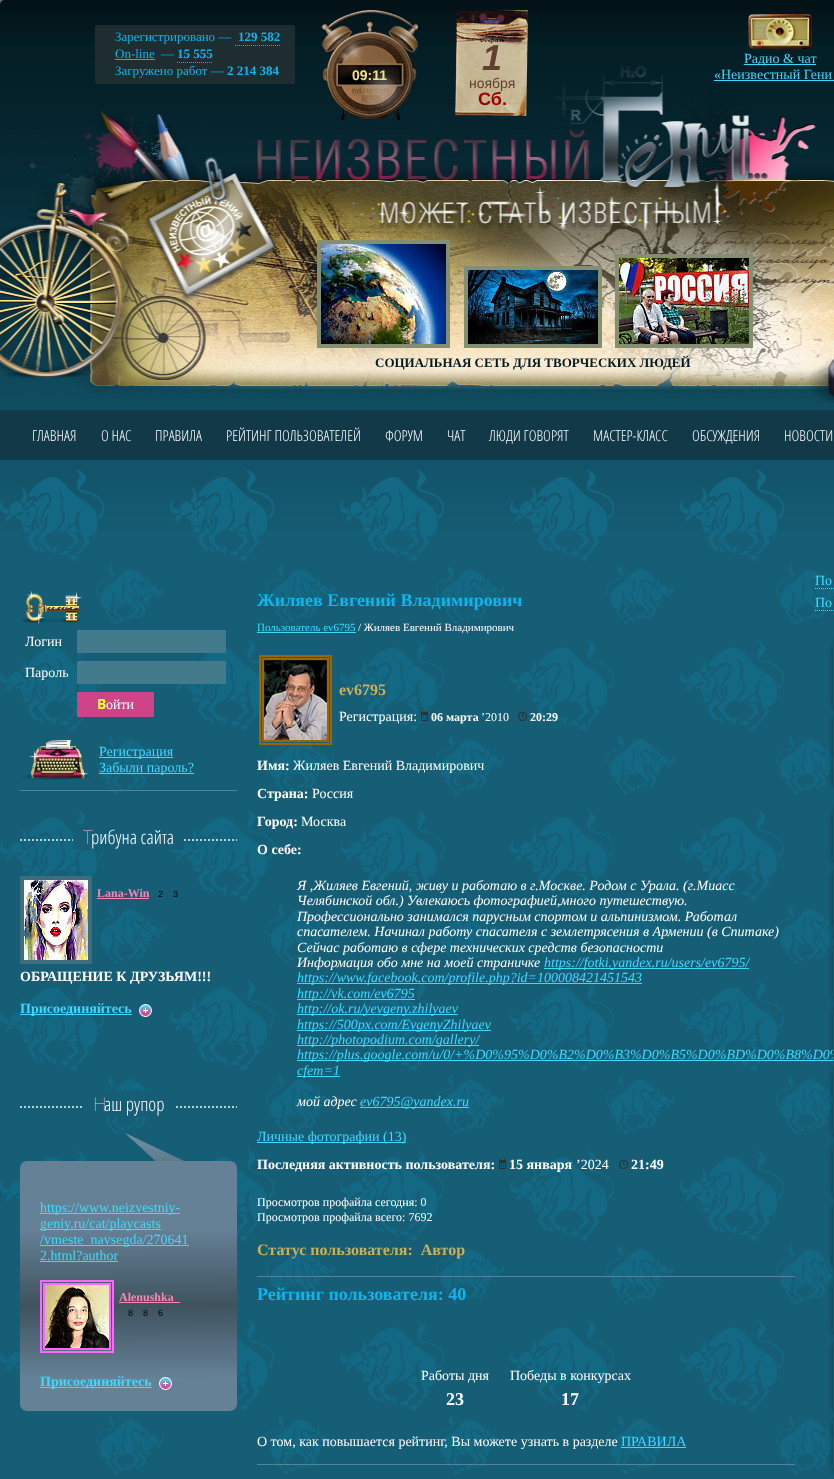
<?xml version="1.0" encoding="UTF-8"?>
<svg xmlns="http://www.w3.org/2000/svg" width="834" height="1479">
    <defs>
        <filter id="blur1" x="-50%" y="-200%" width="200%" height="500%"><feGaussianBlur stdDeviation="10"/></filter>
        <filter id="blur2" x="-50%" y="-200%" width="200%" height="500%"><feGaussianBlur stdDeviation="3.5"/></filter>
        <linearGradient id="g1" gradientUnits="userSpaceOnUse" x1="128" y1="1161" x2="129" y2="1411"><stop offset="0.27" stop-color="#658196"/><stop offset="0.58" stop-color="#3F535E"/><stop offset="0.87" stop-color="#658196"/></linearGradient>
    </defs>
    <rect width="100%" height="100%" fill="#FFFFFF"/>
    <image x="0" y="0" width="5" height="5" href="img_01.png"/>
    <rect x="0" y="0" width="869" height="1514" rx="5" fill="#000000" fill-opacity="0.5" filter="url(#blur1)"/>
    <rect x="0" y="0" width="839" height="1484" rx="5" fill="#155E76"/>
    <image x="0" y="0" width="834" height="530" href="img_02.png"/>
    <image x="0" y="66" width="834" height="337" href="img_03.png"/>
    <rect x="95" y="25" width="200" height="59" rx="2" fill="#223032" fill-opacity="0.85"/>
    <text x="115" y="41" font-family="Liberation Serif" font-size="13" fill="#0CB5EC">Зарегистрировано —</text>
    <path d="M 235 45.5 H 280" fill="none" stroke="#0CB5EC" stroke-dasharray="1 1"/>
    <text x="238" y="41" font-family="Liberation Serif" font-size="13" font-weight="700" fill="#0CB5EC">129 582</text>
    <text x="115" y="58" font-family="Liberation Serif" font-size="13" fill="#0CB5EC">On-line</text>
    <rect x="115" y="59" width="40" height="1" fill="#0CB5EC"/>
    <text x="161" y="58" font-family="Liberation Serif" font-size="13" fill="#0CB5EC">—</text>
    <path d="M 177 62.5 H 213" fill="none" stroke="#0CB5EC" stroke-dasharray="1 1"/>
    <text x="177" y="58" font-family="Liberation Serif" font-size="13" font-weight="700" fill="#0CB5EC">15 555</text>
    <text x="115" y="75" font-family="Liberation Serif" font-size="13" fill="#0CB5EC">Загружено работ —</text>
    <text x="227" y="75" font-family="Liberation Serif" font-size="13" font-weight="700" fill="#0CB5EC">2 214 384</text>
    <image x="321" y="10" width="97" height="110" href="img_04.png"/>
    <text x="352" y="80" font-family="Liberation Sans" font-size="14" font-weight="700" fill="#F2E38A">09:11</text>
    <image x="455" y="10" width="74" height="106" href="img_05.png"/>
    <text x="482" y="70" font-family="Liberation Sans" font-size="36" font-weight="700" font-style="italic" fill="#603E30">1</text>
    <text x="469" y="88" font-family="Liberation Sans" font-size="14" fill="#603E30">ноября</text>
    <text x="478" y="105" font-family="Liberation Sans" font-size="18" font-weight="700" fill="#9A0000">Сб.</text>
    <image x="748" y="14" width="64" height="36" href="img_06.png"/>
    <rect x="744" y="64" width="72" height="1" fill="#3FD9FF"/>
    <text x="744" y="63" font-family="Liberation Serif" font-size="14" fill="#3FD9FF">Радио &amp; чат</text>
    <text x="714" y="79" font-family="Liberation Serif" font-size="14" fill="#3FD9FF">«Неизвестный Гени</text>
    <rect x="714" y="80" width="120" height="1" fill="#3FD9FF"/>
    <rect x="319" y="242" width="129" height="104" fill="none" stroke="#848E71" stroke-width="4"/>
    <image x="321" y="244" width="125" height="100" href="img_07.png"/>
    <rect x="617" y="256" width="134" height="90" fill="none" stroke="#848E71" stroke-width="4"/>
    <rect x="466" y="268" width="134" height="78" fill="none" stroke="#848E71" stroke-width="4"/>
    <image x="619" y="258" width="130" height="86" href="img_08.png"/>
    <image x="468" y="270" width="130" height="74" href="img_09.png"/>
    <text x="375" y="367" font-family="Liberation Serif" font-size="13" font-weight="700" fill="#031C23">СОЦИАЛЬНАЯ СЕТЬ ДЛЯ ТВОРЧЕСКИХ ЛЮДЕЙ</text>
    <rect x="0" y="410" width="834" height="50" fill="#113948"/>
    <text x="32" y="441" font-family="Open Sans Condensed" font-size="15" font-weight="300" fill="#FFFFFF">ГЛАВНАЯ</text>
    <text x="101" y="441" font-family="Open Sans Condensed" font-size="15" font-weight="300" fill="#FFFFFF">О НАС</text>
    <text x="155" y="441" font-family="Open Sans Condensed" font-size="15" font-weight="300" fill="#FFFFFF">ПРАВИЛА</text>
    <text x="226" y="441" font-family="Open Sans Condensed" font-size="15" font-weight="300" fill="#FFFFFF">РЕЙТИНГ ПОЛЬЗОВАТЕЛЕЙ</text>
    <text x="385" y="441" font-family="Open Sans Condensed" font-size="15" font-weight="300" fill="#FFFFFF">ФОРУМ</text>
    <text x="447" y="441" font-family="Open Sans Condensed" font-size="15" font-weight="300" fill="#FFFFFF">ЧАТ</text>
    <text x="489" y="441" font-family="Open Sans Condensed" font-size="15" font-weight="300" fill="#FFFFFF">ЛЮДИ ГОВОРЯТ</text>
    <text x="593" y="441" font-family="Open Sans Condensed" font-size="15" font-weight="300" fill="#FFFFFF">МАСТЕР-КЛАСС</text>
    <text x="692" y="441" font-family="Open Sans Condensed" font-size="15" font-weight="300" fill="#FFFFFF">ОБСУЖДЕНИЯ</text>
    <text x="784" y="441" font-family="Open Sans Condensed" font-size="15" font-weight="300" fill="#FFFFFF">НОВОСТИ</text>
    <image x="0" y="470" width="834" height="1005" href="img_10.png"/>
    <text x="815" y="585" font-family="Liberation Serif" font-size="14" fill="#3FD9FF">По</text>
    <path d="M 815 588.5 H 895" fill="none" stroke="#3FD9FF" stroke-dasharray="1 1"/>
    <text x="815" y="607" font-family="Liberation Serif" font-size="14" fill="#3FD9FF">По</text>
    <path d="M 815 610.5 H 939" fill="none" stroke="#3FD9FF" stroke-dasharray="1 1"/>
    <rect x="834" y="642" width="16" height="68" rx="5" fill="#000000" fill-opacity="0.5" filter="url(#blur2)"/>
    <rect x="833.5" y="641.5" width="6" height="67" rx="4.5" fill="none" stroke="#1F5B6F"/>
    <rect x="834" y="718" width="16" height="68" rx="5" fill="#000000" fill-opacity="0.5" filter="url(#blur2)"/>
    <rect x="833.5" y="717.5" width="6" height="67" rx="4.5" fill="none" stroke="#1F5B6F"/>
    <rect x="834" y="810" width="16" height="53" rx="5" fill="#000000" fill-opacity="0.5" filter="url(#blur2)"/>
    <rect x="833.5" y="809.5" width="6" height="52" rx="4.5" fill="none" stroke="#1F5B6F"/>
    <rect x="834" y="871" width="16" height="68" rx="5" fill="#000000" fill-opacity="0.5" filter="url(#blur2)"/>
    <rect x="833.5" y="870.5" width="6" height="67" rx="4.5" fill="none" stroke="#1F5B6F"/>
    <rect x="834" y="947" width="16" height="53" rx="5" fill="#000000" fill-opacity="0.5" filter="url(#blur2)"/>
    <rect x="833.5" y="946.5" width="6" height="52" rx="4.5" fill="none" stroke="#1F5B6F"/>
    <rect x="297" y="1060" width="537" height="1" fill="#3FD9FF"/>
    <rect x="834" y="1008" width="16" height="53" rx="5" fill="#000000" fill-opacity="0.5" filter="url(#blur2)"/>
    <text x="297" y="1059" font-family="Liberation Serif" font-size="14" font-style="italic" fill="#3FD9FF">https://plus.google.com/u/0/+%D0%95%D0%B2%D0%B3%D0%B5%D0%BD%D0%B8%D0%</text>
    <rect x="833.5" y="1007.5" width="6" height="52" rx="4.5" fill="none" stroke="#1F5B6F"/>
    <rect x="834" y="1069" width="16" height="68" rx="5" fill="#000000" fill-opacity="0.5" filter="url(#blur2)"/>
    <rect x="833.5" y="1068.5" width="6" height="67" rx="4.5" fill="none" stroke="#1F5B6F"/>
    <rect x="834" y="1145" width="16" height="53" rx="5" fill="#000000" fill-opacity="0.5" filter="url(#blur2)"/>
    <rect x="833.5" y="1144.5" width="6" height="52" rx="4.5" fill="none" stroke="#1F5B6F"/>
    <rect x="834" y="1206" width="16" height="68" rx="5" fill="#000000" fill-opacity="0.5" filter="url(#blur2)"/>
    <rect x="833.5" y="1205.5" width="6" height="67" rx="4.5" fill="none" stroke="#1F5B6F"/>
    <rect x="834" y="1282" width="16" height="53" rx="5" fill="#000000" fill-opacity="0.5" filter="url(#blur2)"/>
    <rect x="833.5" y="1281.5" width="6" height="52" rx="4.5" fill="none" stroke="#1F5B6F"/>
    <rect x="834" y="1343" width="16" height="68" rx="5" fill="#000000" fill-opacity="0.5" filter="url(#blur2)"/>
    <rect x="833.5" y="1342.5" width="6" height="67" rx="4.5" fill="none" stroke="#1F5B6F"/>
    <rect x="834" y="1419" width="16" height="53" rx="5" fill="#000000" fill-opacity="0.5" filter="url(#blur2)"/>
    <rect x="833.5" y="1418.5" width="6" height="52" rx="4.5" fill="none" stroke="#1F5B6F"/>
    <image x="22" y="590" width="60" height="35" href="img_11.png"/>
    <text x="25" y="646" font-family="Liberation Serif" font-size="14" fill="#FFFFFF">Логин</text>
    <rect x="77" y="630" width="149" height="23" rx="1" fill="#437A8C"/>
    <text x="25" y="677" font-family="Liberation Serif" font-size="14" fill="#FFFFFF">Пароль</text>
    <rect x="77" y="661" width="149" height="23" rx="1" fill="#437A8C"/>
    <rect x="77" y="692" width="77" height="25" rx="1" fill="#CF4488"/>
    <text x="97" y="709" font-family="Noto Sans" font-size="14" font-weight="700" fill="#FFFF33">В</text>
    <text x="106" y="709" font-family="Liberation Serif" font-size="14" fill="#FFFFFF">ойти</text>
    <image x="22" y="740" width="68" height="40" href="img_12.png"/>
    <rect x="99" y="757" width="74" height="1" fill="#3FD9FF"/>
    <text x="99" y="756" font-family="Liberation Serif" font-size="14" fill="#3FD9FF">Регистрация</text>
    <rect x="99" y="773" width="95" height="1" fill="#3FD9FF"/>
    <text x="99" y="772" font-family="Liberation Serif" font-size="14" fill="#3FD9FF">Забыли пароль?</text>
    <rect x="20" y="790" width="217" height="1" fill="#508698"/>
    <path d="M 20 840 H 237" fill="none" stroke="#FFFFFF" stroke-opacity="0.7" stroke-width="2" stroke-dasharray="2 2"/>
    <rect x="73" y="824" width="111" height="26" rx="3" fill="#155E76"/>
    <text x="83" y="844" font-family="Noto Sans" font-size="19" font-weight="100" fill="#FCBED4">Т</text>
    <text x="91" y="844" font-family="Open Sans Condensed" font-size="19" font-weight="300" fill="#FFFFFF">рибуна сайта</text>
    <rect x="22" y="878" width="68" height="84" fill="none" stroke="#3F6D7D" stroke-width="4"/>
    <image x="24" y="880" width="64" height="80" href="img_13.png"/>
    <text x="97" y="897" font-family="Liberation Serif" font-size="12" font-weight="700" fill="#FF84B0">Lana-Win</text>
    <rect x="97" y="898" width="52" height="1" fill="#FF84B0"/>
    <text x="158" y="897" font-family="Liberation Sans" font-size="9" fill="#000000">2</text>
    <text x="173" y="897" font-family="Liberation Sans" font-size="9" fill="#000000">3</text>
    <text x="20" y="981" font-family="Liberation Serif" font-size="14" font-weight="700" fill="#FFFFFF">ОБРАЩЕНИЕ К ДРУЗЬЯМ!!!</text>
    <rect x="20" y="1014" width="112" height="1" fill="#3FD9FF"/>
    <text x="20" y="1013" font-family="Liberation Serif" font-size="14" font-weight="700" fill="#3FD9FF">Присоединяйтесь</text>
    <image x="139" y="1004" width="13" height="13" href="img_14.png"/>
    <path d="M 20 1107 H 237" fill="none" stroke="#FFFFFF" stroke-opacity="0.7" stroke-width="2" stroke-dasharray="2 2"/>
    <rect x="83" y="1091" width="91" height="26" rx="3" fill="#155E76"/>
    <text x="93" y="1111" font-family="Noto Sans" font-size="19" font-weight="100" fill="#FCBED4">Н</text>
    <text x="104" y="1111" font-family="Open Sans Condensed" font-size="19" font-weight="300" fill="#FFFFFF">аш рупор</text>
    <image x="125" y="1133" width="59" height="28" href="img_15.png"/>
    <rect x="20" y="1161" width="217" height="250" rx="7" fill="url(#g1)"/>
    <rect x="40" y="1213" width="140" height="1" fill="#3FD9FF"/>
    <text x="40" y="1212" font-family="Liberation Serif" font-size="14" fill="#3FD9FF">https://www.neizvestniy-</text>
    <rect x="40" y="1229" width="121" height="1" fill="#3FD9FF"/>
    <text x="40" y="1228" font-family="Liberation Serif" font-size="14" fill="#3FD9FF">geniy.ru/cat/playcasts</text>
    <rect x="40" y="1245" width="149" height="1" fill="#3FD9FF"/>
    <text font-family="Liberation Serif" font-size="14" fill="#3FD9FF">
        <tspan x="40" y="1244">/vmeste_navsegda/270641</tspan>
        <tspan x="40" y="1260">2.html?author</tspan>
    </text>
    <rect x="40" y="1261" width="78" height="1" fill="#3FD9FF"/>
    <rect x="41" y="1281" width="72" height="71" fill="none" stroke="#FF66FF" stroke-width="2"/>
    <rect x="44" y="1284" width="66" height="65" fill="none" stroke="#FF66FF" stroke-width="2"/>
    <image x="45" y="1285" width="64" height="63" href="img_16.png"/>
    <text x="119" y="1301" font-family="Liberation Serif" font-size="12" font-weight="700" fill="#FF84B0">Alenushka</text>
    <rect x="119" y="1302" width="61" height="1" fill="#FF84B0"/>
    <text x="128" y="1316" font-family="Liberation Sans" font-size="9" fill="#000000">8</text>
    <text x="143" y="1316" font-family="Liberation Sans" font-size="9" fill="#000000">8</text>
    <text x="158" y="1316" font-family="Liberation Sans" font-size="9" fill="#000000">6</text>
    <rect x="40" y="1387" width="112" height="1" fill="#3FD9FF"/>
    <text x="40" y="1386" font-family="Liberation Serif" font-size="14" font-weight="700" fill="#3FD9FF">Присоединяйтесь</text>
    <image x="159" y="1377" width="13" height="13" href="img_17.png"/>
    <text x="257" y="606" font-family="Liberation Serif" font-size="18" font-weight="700" fill="#0CB5EC">Жиляев Евгений Владимирович</text>
    <text x="257" y="631" font-family="Liberation Serif" font-size="11" fill="#3FD9FF">Пользователь ev6795</text>
    <rect x="257" y="632" width="99" height="1" fill="#3FD9FF"/>
    <text x="358" y="631" font-family="Liberation Serif" font-size="11" fill="#FFFFFF">/ Жиляев Евгений Владимирович</text>
    <rect x="260" y="656" width="71" height="88" fill="none" stroke="#996600" stroke-width="2"/>
    <rect x="263" y="659" width="65" height="82" fill="none" stroke="#996600" stroke-width="2"/>
    <image x="264" y="660" width="63" height="80" href="img_18.png"/>
    <text x="339" y="695" font-family="Liberation Serif" font-size="16" font-weight="700" fill="#CEAF54">ev6795</text>
    <text x="339" y="721" font-family="Liberation Serif" font-size="14" fill="#FFFFFF">Регистрация:</text>
    <image x="421" y="711" width="7" height="10" href="img_19.png"/>
    <text x="431" y="721" font-family="Liberation Serif" font-size="12" font-weight="700" fill="#FFFFFF">06 марта</text>
    <text x="481" y="721" font-family="Liberation Serif" font-size="12" fill="#FFFFFF">’2010</text>
    <image x="518" y="712" width="9" height="9" href="img_20.png"/>
    <text x="530" y="721" font-family="Liberation Serif" font-size="12" font-weight="700" fill="#FFFFFF">20:29</text>
    <text x="257" y="770" font-family="Liberation Serif" font-size="14" font-weight="700" fill="#FFFFFF">Имя:</text>
    <text x="293" y="770" font-family="Liberation Serif" font-size="14" fill="#FFFFFF">Жиляев Евгений Владимирович</text>
    <text x="257" y="798" font-family="Liberation Serif" font-size="14" font-weight="700" fill="#FFFFFF">Страна:</text>
    <text x="312" y="798" font-family="Liberation Serif" font-size="14" fill="#FFFFFF">Россия</text>
    <text x="257" y="826" font-family="Liberation Serif" font-size="14" font-weight="700" fill="#FFFFFF">Город:</text>
    <text x="301" y="826" font-family="Liberation Serif" font-size="14" fill="#FFFFFF">Москва</text>
    <text x="257" y="854" font-family="Liberation Serif" font-size="14" font-weight="700" fill="#FFFFFF">О себе:</text>
    <text font-family="Liberation Serif" font-size="14" font-style="italic" fill="#FFFFFF">
        <tspan x="297" y="890">Я ,Жиляев Евгений, живу и работаю в г.Москве. Родом с Урала. (г.Миасс</tspan>
        <tspan x="297" y="905">Челябинской обл.) Увлекаюсь фотографией,много путешествую.</tspan>
        <tspan x="297" y="921">Профессионально занимался парусным спортом и альпинизмом. Работал</tspan>
        <tspan x="297" y="936">спасателем. Начинал работу спасателя с землетрясения в Армении (в Спитаке)</tspan>
        <tspan x="297" y="952">Сейчас работаю в сфере технических средств безопасности</tspan>
        <tspan x="297" y="967">Информация обо мне на моей страничке</tspan>
    </text>
    <rect x="544" y="968" width="205" height="1" fill="#3FD9FF"/>
    <text x="544" y="967" font-family="Liberation Serif" font-size="14" font-style="italic" fill="#3FD9FF">https://fotki.yandex.ru/users/ev6795/</text>
    <rect x="297" y="983" width="345" height="1" fill="#3FD9FF"/>
    <text x="297" y="982" font-family="Liberation Serif" font-size="14" font-style="italic" fill="#3FD9FF">https://www.facebook.com/profile.php?id=100008421451543</text>
    <rect x="297" y="999" width="118" height="1" fill="#3FD9FF"/>
    <text x="297" y="998" font-family="Liberation Serif" font-size="14" font-style="italic" fill="#3FD9FF">http://vk.com/ev6795</text>
    <rect x="297" y="1014" width="161" height="1" fill="#3FD9FF"/>
    <text x="297" y="1013" font-family="Liberation Serif" font-size="14" font-style="italic" fill="#3FD9FF">http://ok.ru/yevgeny.zhilyaev</text>
    <rect x="297" y="1030" width="194" height="1" fill="#3FD9FF"/>
    <text x="297" y="1029" font-family="Liberation Serif" font-size="14" font-style="italic" fill="#3FD9FF">https://500px.com/EvgenyZhilyaev</text>
    <rect x="297" y="1045" width="182" height="1" fill="#3FD9FF"/>
    <text x="297" y="1044" font-family="Liberation Serif" font-size="14" font-style="italic" fill="#3FD9FF">http://photopodium.com/gallery/</text>
    <rect x="297" y="1076" width="43" height="1" fill="#3FD9FF"/>
    <text x="297" y="1075" font-family="Liberation Serif" font-size="14" font-style="italic" fill="#3FD9FF">cfem=1</text>
    <text x="297" y="1106" font-family="Liberation Serif" font-size="14" font-style="italic" fill="#FFFFFF">мой адрес</text>
    <rect x="360" y="1107" width="109" height="1" fill="#3FD9FF"/>
    <text x="360" y="1106" font-family="Liberation Serif" font-size="14" font-style="italic" fill="#3FD9FF">ev6795@yandex.ru</text>
    <rect x="257" y="1142" width="149" height="1" fill="#3FD9FF"/>
    <text x="257" y="1141" font-family="Liberation Serif" font-size="14" fill="#3FD9FF">Личные фотографии (13)</text>
    <text x="257" y="1169" font-family="Liberation Serif" font-size="14" font-weight="700" fill="#FFFFFF">Последняя активность пользователя:</text>
    <image x="499" y="1159" width="7" height="10" href="img_21.png"/>
    <text x="509" y="1169" font-family="Liberation Serif" font-size="14" font-weight="700" fill="#FFFFFF">15 января</text>
    <text x="576" y="1169" font-family="Liberation Serif" font-size="14" fill="#FFFFFF">’2024</text>
    <image x="619" y="1160" width="9" height="9" href="img_20.png"/>
    <text x="631" y="1169" font-family="Liberation Serif" font-size="14" font-weight="700" fill="#FFFFFF">21:49</text>
    <text font-family="Liberation Serif" font-size="12" fill="#FFFFFF">
        <tspan x="257" y="1206">Просмотров профайла сегодня: 0</tspan>
        <tspan x="257" y="1221">Просмотров профайла всего: 7692</tspan>
    </text>
    <text x="257" y="1255" font-family="Liberation Serif" font-size="16" font-weight="700" fill="#CEAF54" xml:space="preserve">Статус пользователя:  Автор</text>
    <rect x="257" y="1276" width="538" height="1" fill="#508698"/>
    <text x="257" y="1300" font-family="Liberation Serif" font-size="18" font-weight="700" fill="#0CB5EC">Рейтинг пользователя: 40</text>
    <text x="421" y="1380" font-family="Liberation Serif" font-size="14" fill="#FFFFFF">Работы дня</text>
    <text x="446" y="1405" font-family="Liberation Serif" font-size="18" font-weight="700" fill="#FFFFFF">23</text>
    <text x="510" y="1380" font-family="Liberation Serif" font-size="14" fill="#FFFFFF">Победы в конкурсах</text>
    <text x="561" y="1405" font-family="Liberation Serif" font-size="18" font-weight="700" fill="#FFFFFF">17</text>
    <text x="257" y="1446" font-family="Liberation Serif" font-size="14" fill="#FFFFFF">О том, как повышается рейтинг, Вы можете узнать в разделе</text>
    <text x="621" y="1446" font-family="Liberation Serif" font-size="14" fill="#3FD9FF">ПРАВИЛА</text>
    <rect x="621" y="1447" width="65" height="1" fill="#3FD9FF"/>
    <rect x="257" y="1464" width="538" height="1" fill="#508698"/>
</svg>
